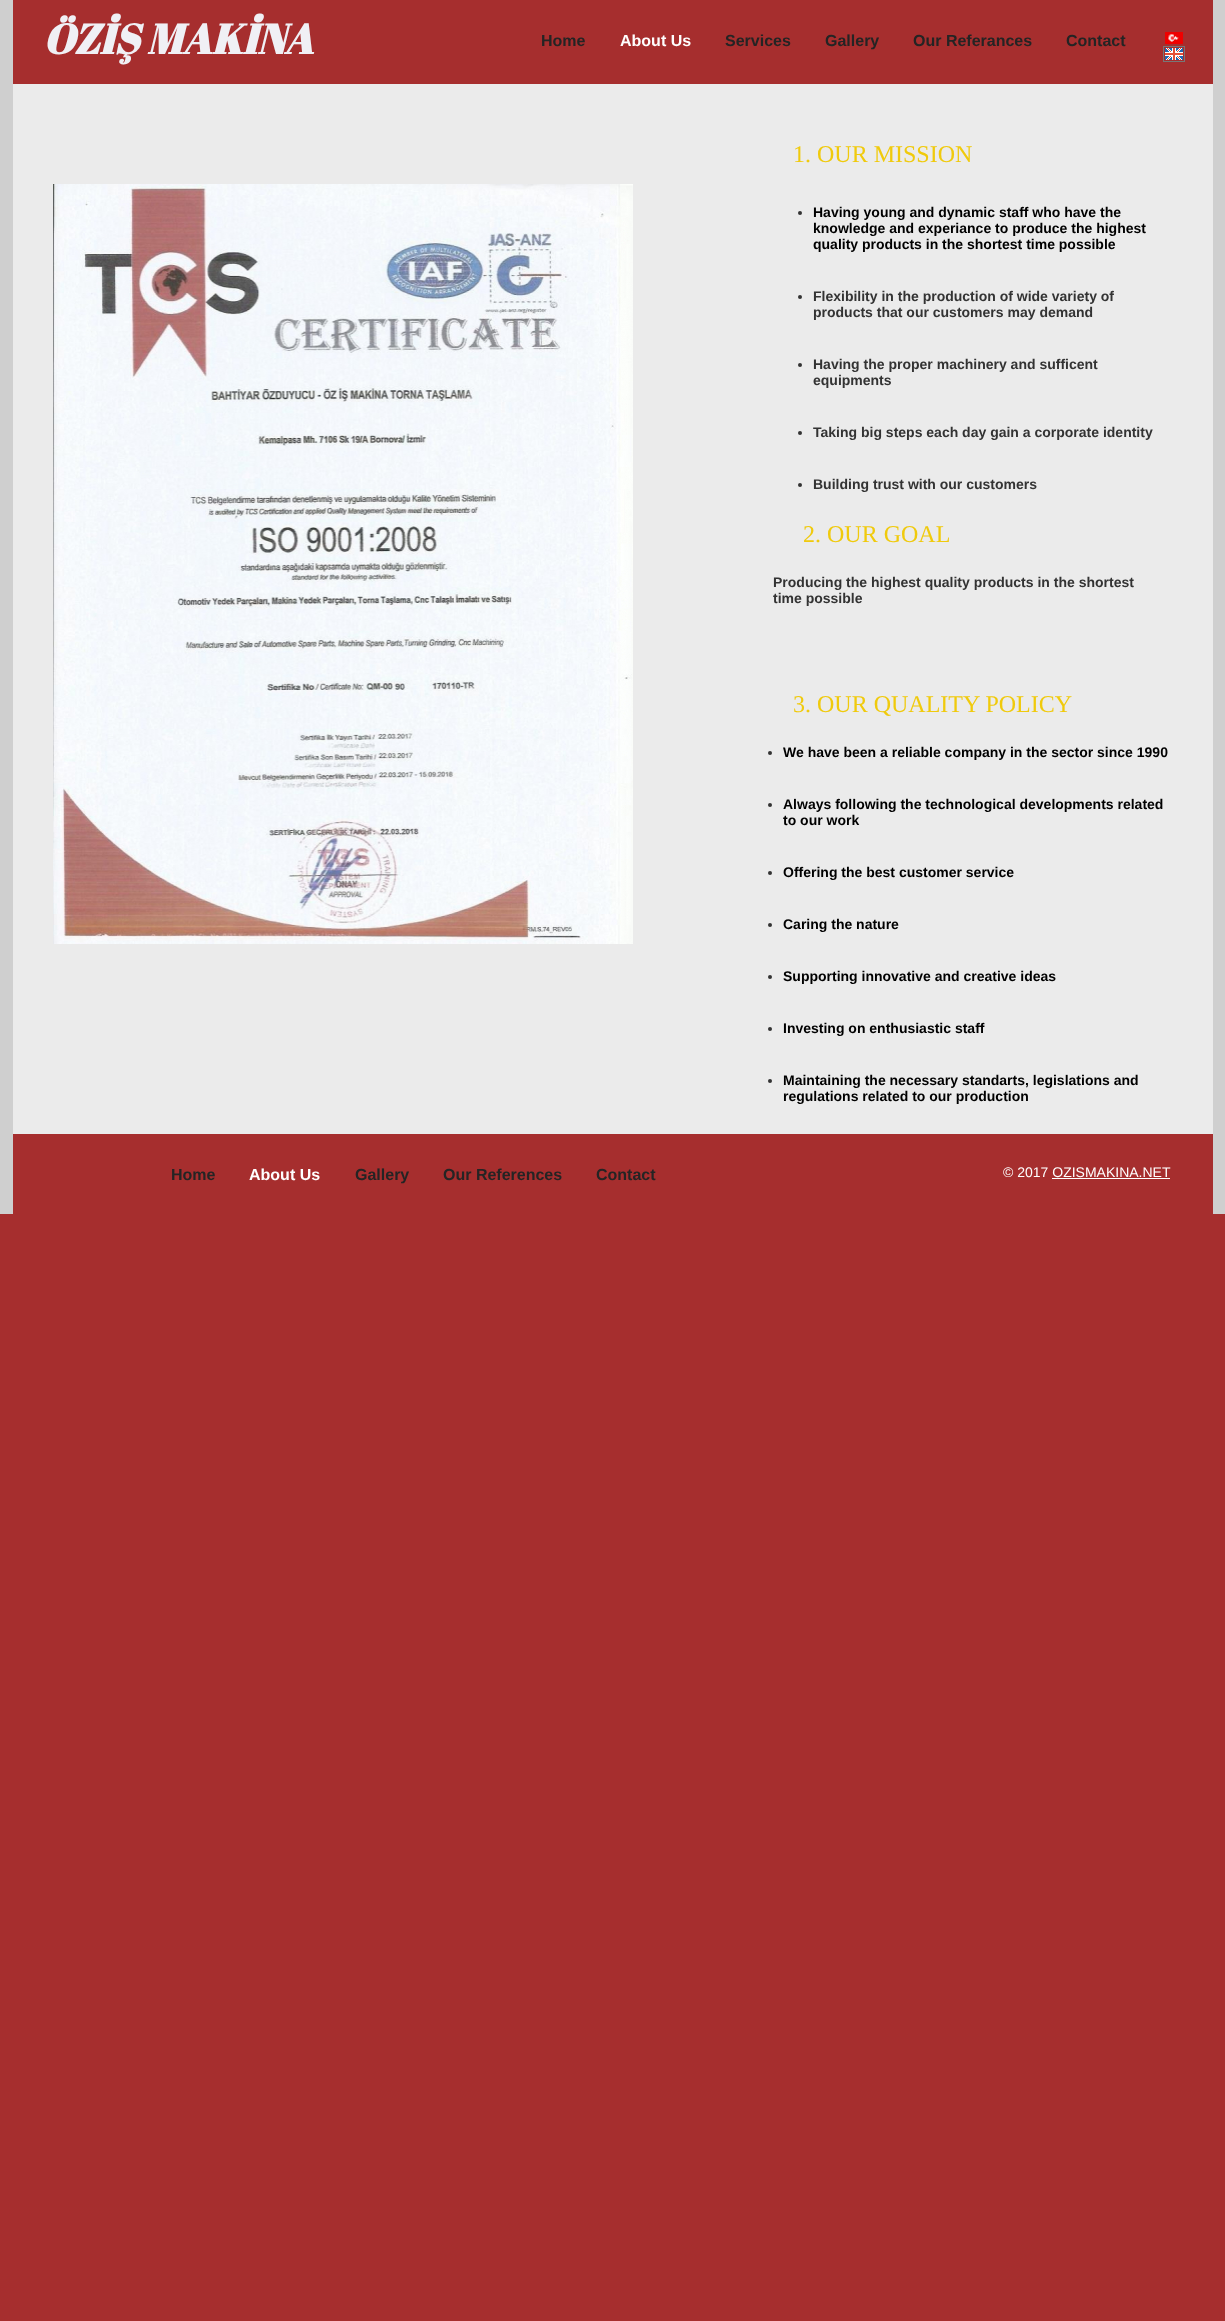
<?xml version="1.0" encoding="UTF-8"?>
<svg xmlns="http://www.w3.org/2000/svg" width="1225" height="2321">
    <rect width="100%" height="100%" fill="#A62E2E"/>
    <rect x="0" y="0" width="1225" height="1214" fill="#CFCFCF"/>
    <rect x="13" y="0" width="1200" height="84" fill="#A62E2E"/>
    <text x="43" y="54" font-family="Abril Fatface" font-size="42" font-weight="700" font-style="italic" fill="#F0F0F5">ÖZİŞ MAKİNA</text>
    <text x="541" y="46" font-family="Liberation Sans" font-size="16" font-weight="700" fill="#242424">Home</text>
    <text x="620" y="46" font-family="Liberation Sans" font-size="16" font-weight="700" fill="#FFFFFF">About Us</text>
    <text x="725" y="46" font-family="Liberation Sans" font-size="16" font-weight="700" fill="#242424">Services</text>
    <text x="825" y="46" font-family="Liberation Sans" font-size="16" font-weight="700" fill="#242424">Gallery</text>
    <text x="913" y="46" font-family="Liberation Sans" font-size="16" font-weight="700" fill="#242424">Our Referances</text>
    <text x="1066" y="46" font-family="Liberation Sans" font-size="16" font-weight="700" fill="#242424">Contact</text>
    <image x="1165" y="32" width="18" height="12" href="img_01.png"/>
    <image x="1165" y="48" width="18" height="12" href="img_02.png"/>
    <rect x="1163.5" y="46.5" width="21" height="15" fill="none" stroke="#777777"/>
    <rect x="13" y="84" width="1200" height="1050" fill="#EBEBEB"/>
    <text x="793" y="162" font-family="Liberation Serif" font-size="24" fill="#F0CA0C">1. OUR MISSION</text>
    <image x="53" y="184" width="580" height="760" href="img_03.png"/>
    <circle cx="800" cy="213" r="2" fill="#333333"/>
    <text font-family="Liberation Sans" font-size="14" font-weight="700" fill="#000000">
        <tspan x="813" y="217">Having young and dynamic staff who have the</tspan>
        <tspan x="813" y="233">knowledge and experiance to produce the highest</tspan>
        <tspan x="813" y="249">quality products in the shortest time possible</tspan>
    </text>
    <circle cx="800" cy="297" r="2" fill="#333333"/>
    <text font-family="Liberation Sans" font-size="14" font-weight="700" fill="#333333">
        <tspan x="813" y="301">Flexibility in the production of wide variety of</tspan>
        <tspan x="813" y="317">products that our customers may demand</tspan>
    </text>
    <circle cx="800" cy="365" r="2" fill="#333333"/>
    <text font-family="Liberation Sans" font-size="14" font-weight="700" fill="#333333">
        <tspan x="813" y="369">Having the proper machinery and sufficent</tspan>
        <tspan x="813" y="385">equipments</tspan>
    </text>
    <circle cx="800" cy="433" r="2" fill="#333333"/>
    <text x="813" y="437" font-family="Liberation Sans" font-size="14" font-weight="700" fill="#333333">Taking big steps each day gain a corporate identity</text>
    <circle cx="800" cy="485" r="2" fill="#333333"/>
    <text x="813" y="489" font-family="Liberation Sans" font-size="14" font-weight="700" fill="#333333">Building trust with our customers</text>
    <text x="803" y="542" font-family="Liberation Serif" font-size="24" fill="#F0CA0C">2. OUR GOAL</text>
    <text font-family="Liberation Sans" font-size="14" font-weight="700" fill="#333333">
        <tspan x="773" y="587">Producing the highest quality products in the shortest</tspan>
        <tspan x="773" y="603">time possible</tspan>
    </text>
    <text x="793" y="712" font-family="Liberation Serif" font-size="24" fill="#F0CA0C">3. OUR QUALITY POLICY</text>
    <circle cx="770" cy="753" r="2" fill="#333333"/>
    <text x="783" y="757" font-family="Liberation Sans" font-size="14" font-weight="700" fill="#000000">We have been a reliable company in the sector since 1990</text>
    <circle cx="770" cy="805" r="2" fill="#333333"/>
    <text font-family="Liberation Sans" font-size="14" font-weight="700" fill="#000000">
        <tspan x="783" y="809">Always following the technological developments related</tspan>
        <tspan x="783" y="825">to our work</tspan>
    </text>
    <circle cx="770" cy="873" r="2" fill="#333333"/>
    <text x="783" y="877" font-family="Liberation Sans" font-size="14" font-weight="700" fill="#000000">Offering the best customer service</text>
    <circle cx="770" cy="925" r="2" fill="#333333"/>
    <text x="783" y="929" font-family="Liberation Sans" font-size="14" font-weight="700" fill="#000000">Caring the nature</text>
    <circle cx="770" cy="977" r="2" fill="#333333"/>
    <text x="783" y="981" font-family="Liberation Sans" font-size="14" font-weight="700" fill="#000000">Supporting innovative and creative ideas</text>
    <circle cx="770" cy="1029" r="2" fill="#333333"/>
    <text x="783" y="1033" font-family="Liberation Sans" font-size="14" font-weight="700" fill="#000000">Investing on enthusiastic staff</text>
    <circle cx="770" cy="1081" r="2" fill="#333333"/>
    <text font-family="Liberation Sans" font-size="14" font-weight="700" fill="#000000">
        <tspan x="783" y="1085">Maintaining the necessary standarts, legislations and</tspan>
        <tspan x="783" y="1101">regulations related to our production</tspan>
    </text>
    <rect x="13" y="1134" width="1200" height="80" fill="#A62E2E"/>
    <text x="171" y="1180" font-family="Liberation Sans" font-size="16" font-weight="700" fill="#242424">Home</text>
    <text x="249" y="1180" font-family="Liberation Sans" font-size="16" font-weight="700" fill="#FFFFFF">About Us</text>
    <text x="355" y="1180" font-family="Liberation Sans" font-size="16" font-weight="700" fill="#242424">Gallery</text>
    <text x="443" y="1180" font-family="Liberation Sans" font-size="16" font-weight="700" fill="#242424">Our References</text>
    <text x="596" y="1180" font-family="Liberation Sans" font-size="16" font-weight="700" fill="#242424">Contact</text>
    <text x="1003" y="1177" font-family="Liberation Sans" font-size="14" fill="#FFFFFF">© 2017 OZISMAKINA.NET</text>
    <rect x="1052" y="1178" width="118" height="1" fill="#FFFFFF"/>
</svg>
